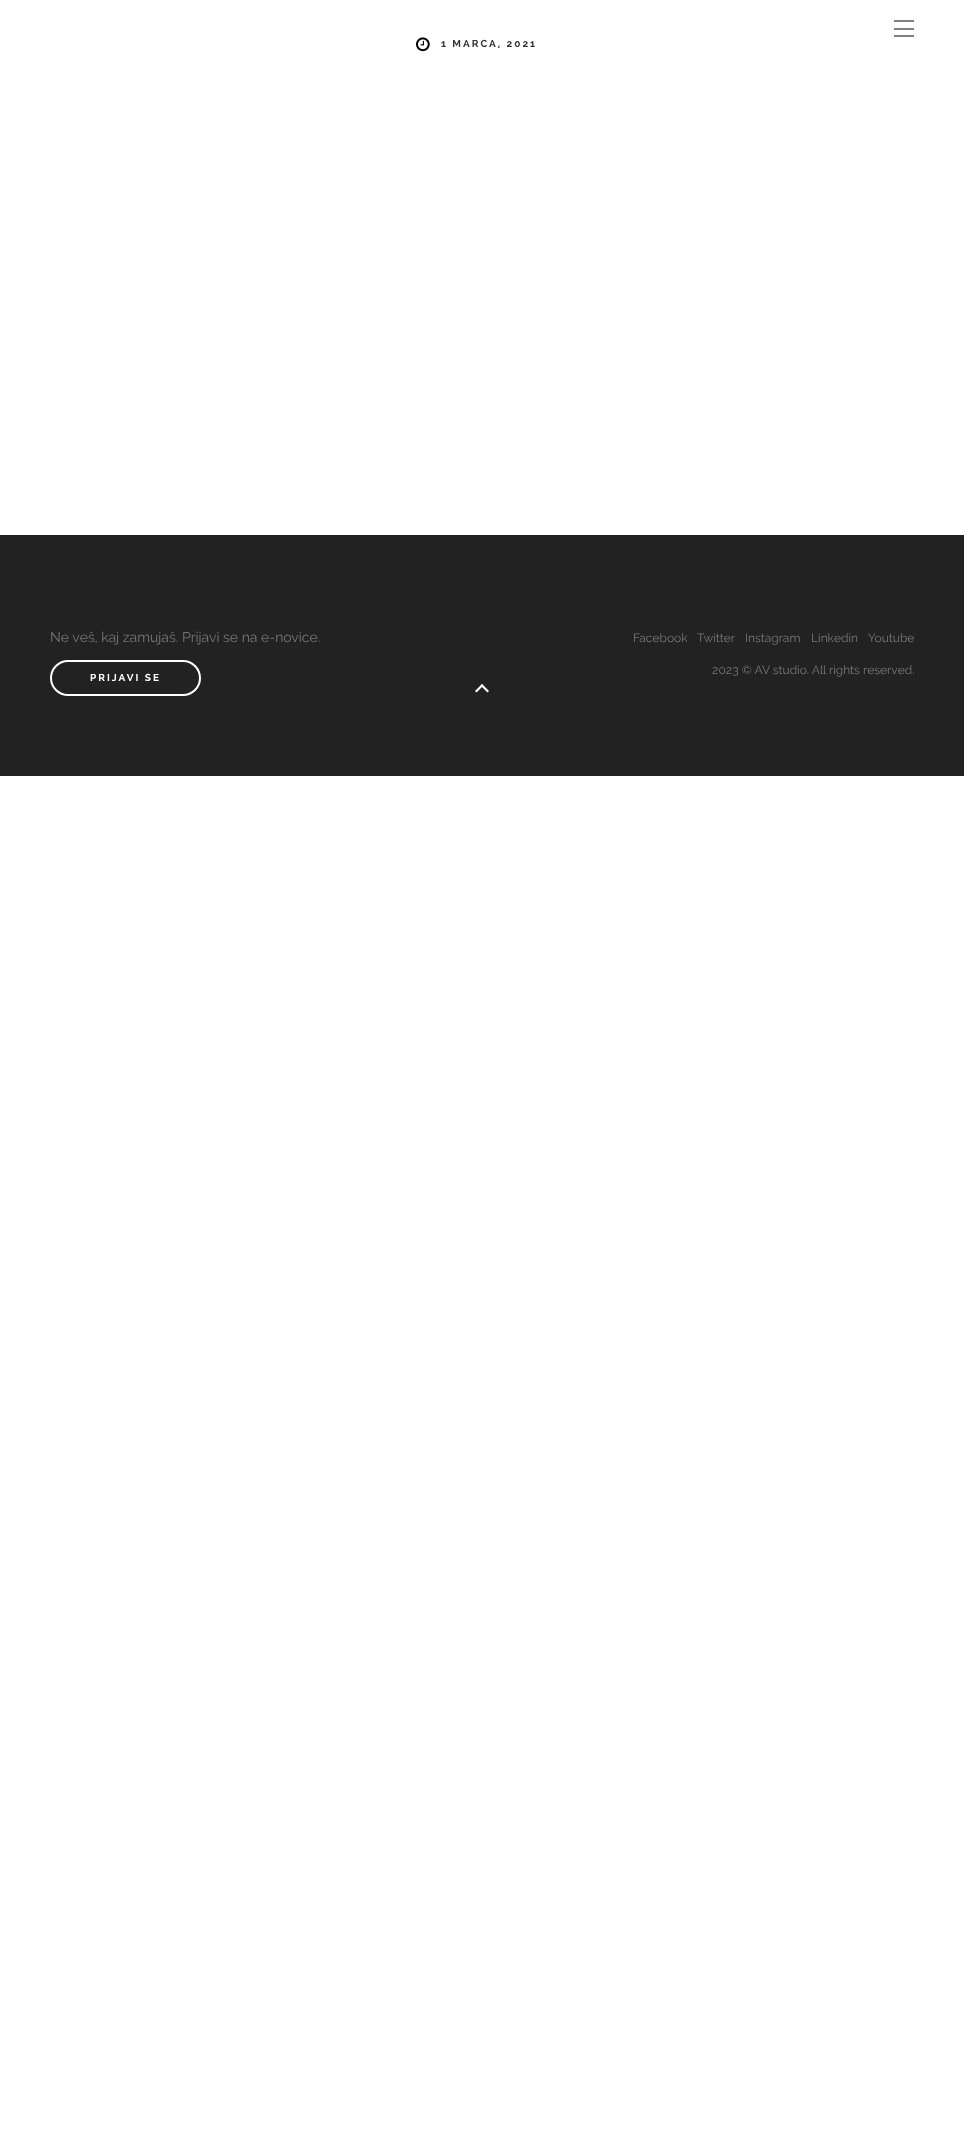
<?xml version="1.0" encoding="UTF-8"?>
<svg xmlns="http://www.w3.org/2000/svg" width="964" height="2147">
    <rect width="100%" height="100%" fill="#FFFFFF"/>
    <rect x="894" y="28" width="20" height="2" fill="#808080"/>
    <rect x="894" y="20" width="20" height="2" fill="#808080"/>
    <rect x="894" y="35" width="20" height="2" fill="#808080"/>
    <image x="416" y="37" width="14" height="15" href="img_01.png"/>
    <text x="441" y="47" font-family="Raleway" font-size="10" font-weight="700" letter-spacing="2" fill="#333333">1 MARCA, 2021</text>
    <rect x="0" y="535" width="964" height="241" fill="#222222"/>
    <text x="50" y="642" font-family="Raleway" font-size="14" fill="#777777">Ne veš, kaj zamujaš. Prijavi se na e-novice.</text>
    <rect x="51" y="661" width="149" height="34" rx="17" fill="none" stroke="#FFFFFF" stroke-width="2"/>
    <text x="90" y="681" font-family="Raleway" font-size="10" font-weight="700" letter-spacing="2" fill="#FFFFFF">PRIJAVI SE</text>
    <text x="633" y="642" font-family="Raleway" font-size="12" fill="#777777">Facebook</text>
    <text x="697" y="642" font-family="Raleway" font-size="12" fill="#777777">Twitter</text>
    <text x="745" y="642" font-family="Raleway" font-size="12" fill="#777777">Instagram</text>
    <text x="811" y="642" font-family="Raleway" font-size="12" fill="#777777">Linkedin</text>
    <text x="868" y="642" font-family="Raleway" font-size="12" fill="#777777">Youtube</text>
    <text x="712" y="674" font-family="Raleway" font-size="12" fill="#777777">2023 © AV studio. All rights reserved.</text>
    <path d="M 482 684 L 489 691 L 487.5 692.5 L 480.5 685.5 Z" fill="#FFFFFF"/>
    <path d="M 482 684 L 483.5 685.5 L 476.5 692.5 L 475 691 Z" fill="#FFFFFF"/>
</svg>
